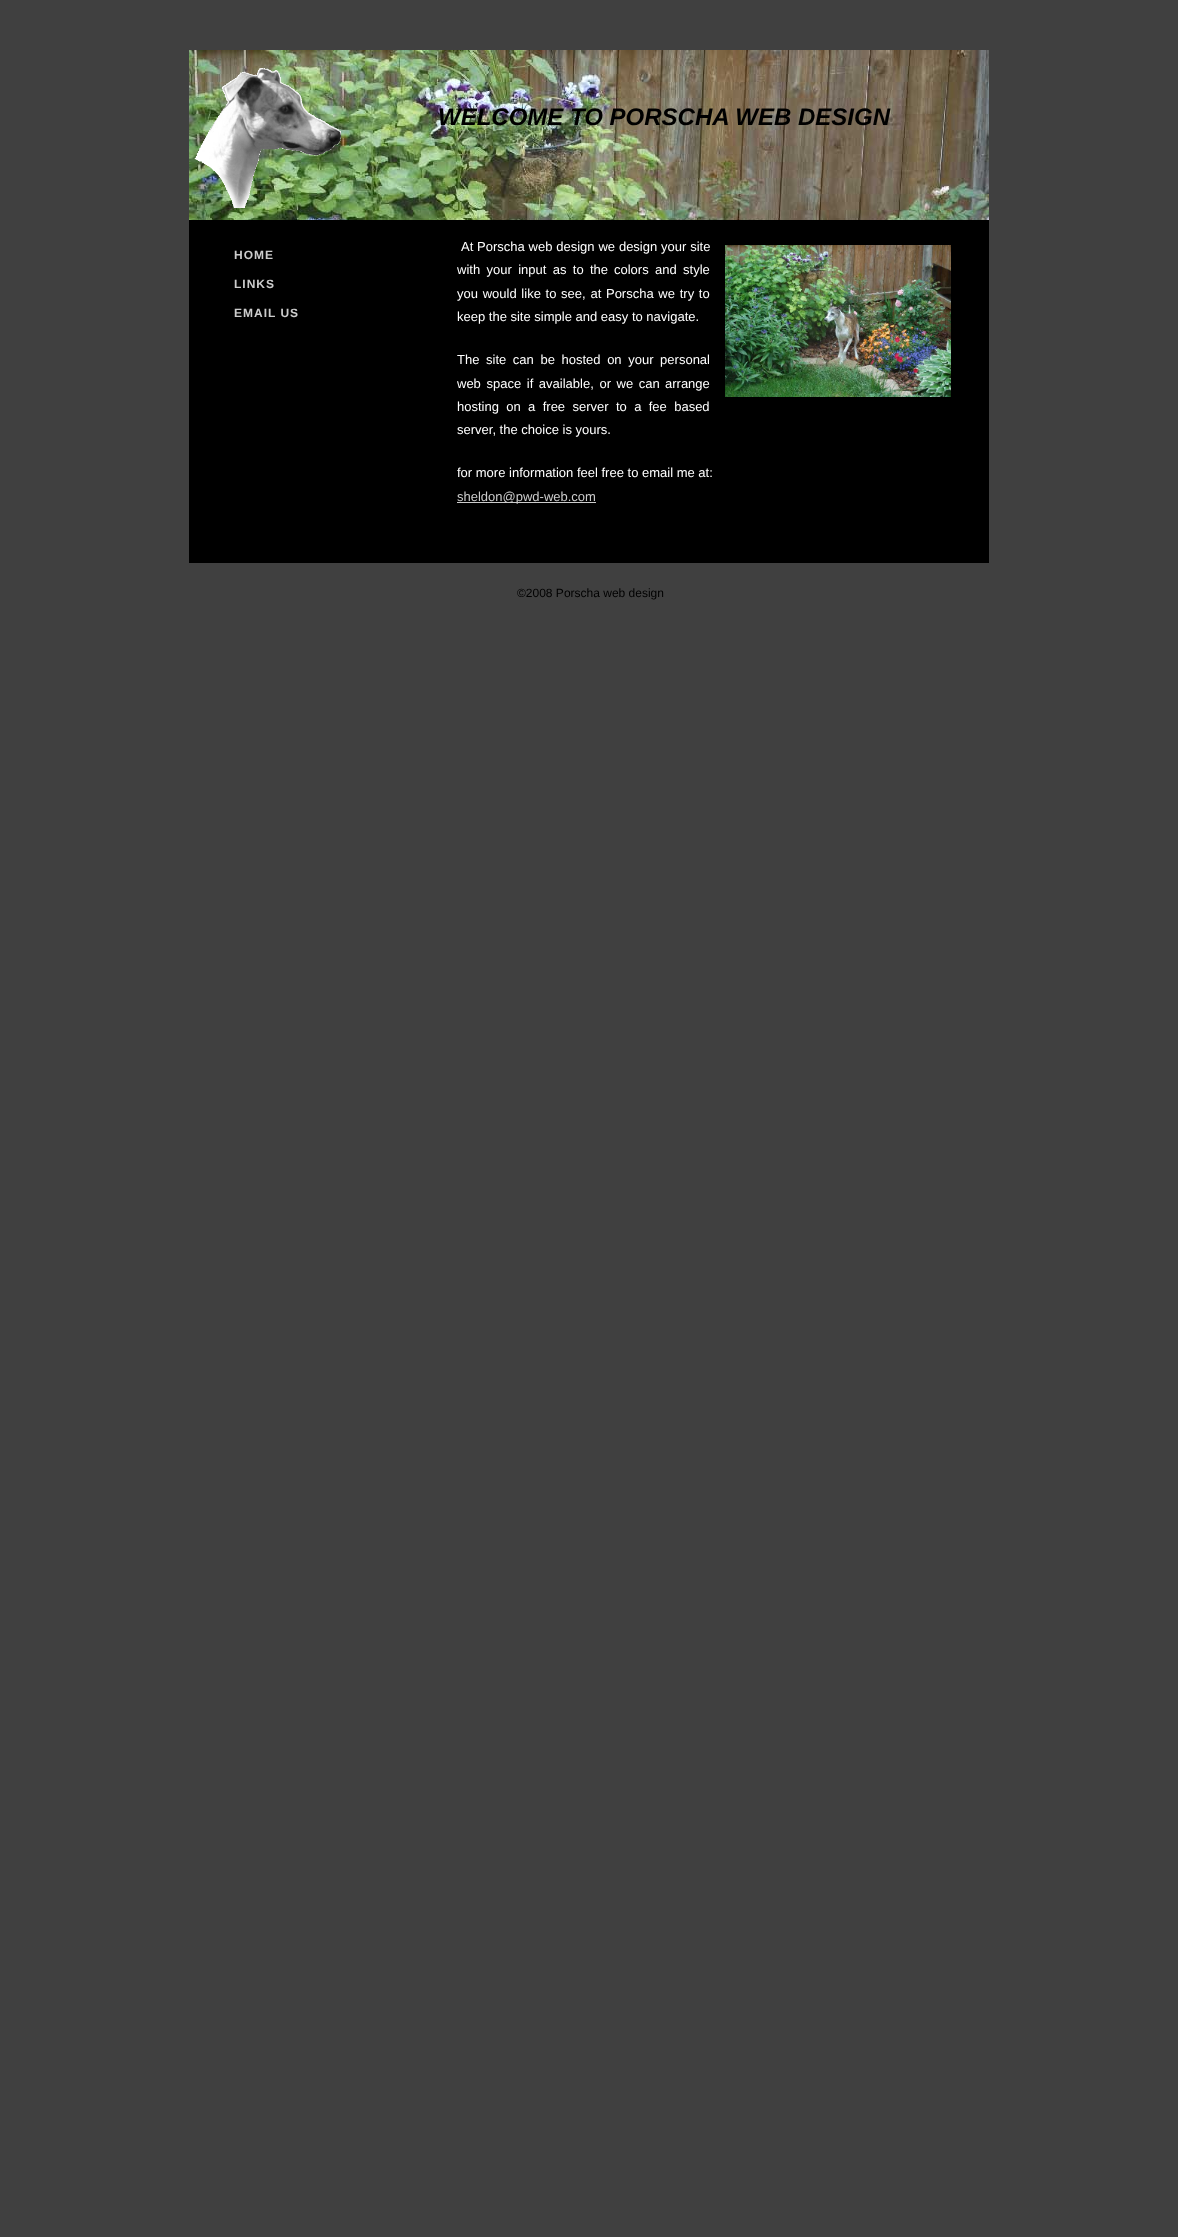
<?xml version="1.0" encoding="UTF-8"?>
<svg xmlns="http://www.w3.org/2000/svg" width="1178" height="2237">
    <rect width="100%" height="100%" fill="#404040"/>
    <image x="189" y="50" width="800" height="170" href="img_01.png"/>
    <image x="194" y="68" width="147" height="140" href="img_02.png"/>
    <text x="438" y="125" font-family="Liberation Sans" font-size="24" font-weight="700" font-style="italic" fill="#000000">WELCOME TO PORSCHA WEB DESIGN</text>
    <rect x="189" y="220" width="800" height="343" fill="#000000"/>
    <text x="234" y="259" font-family="Liberation Sans" font-size="12" font-weight="700" letter-spacing="1" fill="#CCCCCC">HOME</text>
    <text x="234" y="288" font-family="Liberation Sans" font-size="12" font-weight="700" letter-spacing="1" fill="#CCCCCC">LINKS</text>
    <text x="234" y="317" font-family="Liberation Sans" font-size="12" font-weight="700" letter-spacing="1" fill="#CCCCCC">EMAIL US</text>
    <text x="461" y="251" font-family="Liberation Sans" font-size="13" fill="#FFFFFF">At</text>
    <text x="477" y="251" word-spacing="0.25" font-family="Liberation Sans" font-size="13" fill="#FFFFFF">Porscha web design we design your site</text>
    <text x="457" y="274" word-spacing="2.75" font-family="Liberation Sans" font-size="13" fill="#FFFFFF">with your input as to the</text>
    <text x="614" y="274" word-spacing="2.75" font-family="Liberation Sans" font-size="13" fill="#FFFFFF">colors and style</text>
    <text font-family="Liberation Sans" font-size="13" fill="#FFFFFF">
        <tspan x="457" y="298" word-spacing="1.1">you would like to see, at Porscha we try to</tspan>
        <tspan x="457" y="321">keep the site simple and easy to navigate.</tspan>
    </text>
    <image x="725" y="245" width="226" height="152" href="img_03.png"/>
    <text font-family="Liberation Sans" font-size="13" fill="#FFFFFF">
        <tspan x="457" y="364" word-spacing="3">The site can be hosted on your personal</tspan>
        <tspan x="457" y="388" word-spacing="2">web space if available, or we can</tspan>
    </text>
    <text x="665" y="388" font-family="Liberation Sans" font-size="13" fill="#FFFFFF">arrange</text>
    <text font-family="Liberation Sans" font-size="13" fill="#FFFFFF">
        <tspan x="457" y="411" word-spacing="3.75">hosting on a free server to a fee based</tspan>
        <tspan x="457" y="434">server, the choice is yours.</tspan>
    </text>
    <text x="457" y="477" font-family="Liberation Sans" font-size="13" fill="#FFFFFF">for more information feel free to email me at:</text>
    <rect x="457" y="502" width="139" height="1" fill="#CCCCCC"/>
    <text x="457" y="501" font-family="Liberation Sans" font-size="13" fill="#CCCCCC">sheldon@pwd-web.com</text>
    <text x="517" y="597" font-family="Liberation Sans" font-size="12" fill="#000000">©2008 Porscha web design</text>
</svg>
